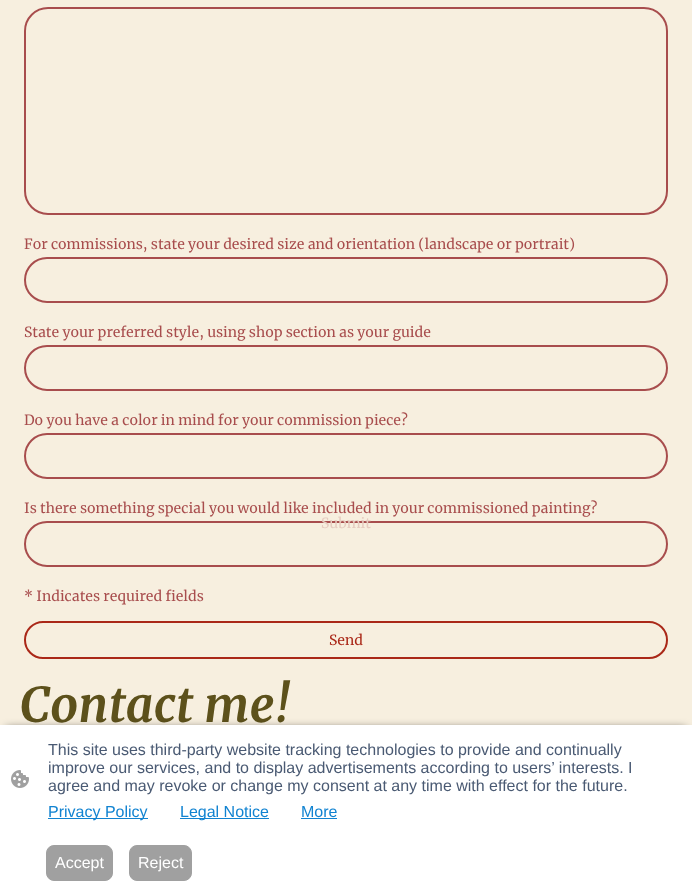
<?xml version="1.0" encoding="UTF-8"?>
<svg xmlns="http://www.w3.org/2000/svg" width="692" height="889">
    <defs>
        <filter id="blur1" x="-50%" y="-200%" width="200%" height="500%"><feGaussianBlur stdDeviation="4"/></filter>
    </defs>
    <rect width="100%" height="100%" fill="#F7EFDF"/>
    <rect x="25" y="8" width="642" height="206" rx="23" fill="none" stroke="#A84D4D" stroke-width="2"/>
    <text x="24" y="249" font-family="Merriweather" font-size="14" fill="#A84D4D">For commissions, state your desired size and orientation (landscape or portrait)</text>
    <rect x="25" y="258" width="642" height="44" rx="22" fill="none" stroke="#A84D4D" stroke-width="2"/>
    <text x="24" y="337" font-family="Merriweather" font-size="14" fill="#A84D4D">State your preferred style, using shop section as your guide</text>
    <rect x="25" y="346" width="642" height="44" rx="22" fill="none" stroke="#A84D4D" stroke-width="2"/>
    <text x="24" y="425" font-family="Merriweather" font-size="14" fill="#A84D4D">Do you have a color in mind for your commission piece?</text>
    <rect x="25" y="434" width="642" height="44" rx="22" fill="none" stroke="#A84D4D" stroke-width="2"/>
    <text x="24" y="513" font-family="Merriweather" font-size="14" fill="#A84D4D">Is there something special you would like included in your commissioned painting?</text>
    <rect x="25" y="522" width="642" height="44" rx="22" fill="none" stroke="#A84D4D" stroke-width="2"/>
    <text x="24" y="601" font-family="Merriweather" font-size="14" fill="#A84D4D">* Indicates required fields</text>
    <rect x="25" y="622" width="642" height="36" rx="18" fill="none" stroke="#AA2818" stroke-width="2"/>
    <text x="329" y="645" font-family="Merriweather" font-size="14" fill="#AA2818">Send</text>
    <text x="20" y="722" font-family="Merriweather" font-size="48" font-weight="700" font-style="italic" fill="#5D511B">Contact me!</text>
    <text x="321" y="528" font-family="Merriweather" font-size="14" fill="#E6CCC0">Submit</text>
    <rect x="6" y="728" width="680" height="152" fill="#000000" fill-opacity="0.63" filter="url(#blur1)"/>
    <rect x="0" y="725" width="692" height="164" fill="#FFFFFF"/>
    <image x="11" y="770" width="18" height="18" href="img_01.png"/>
    <text font-family="Liberation Sans" font-size="16" fill="#4A5A73">
        <tspan x="48" y="755">This site uses third-party website tracking technologies to provide and continually</tspan>
        <tspan x="48" y="773">improve our services, and to display advertisements according to users’ interests. I</tspan>
        <tspan x="48" y="791">agree and may revoke or change my consent at any time with effect for the future.</tspan>
    </text>
    <rect x="48" y="818" width="100" height="1" fill="#1183D1"/>
    <text x="48" y="817" font-family="Liberation Sans" font-size="16" fill="#1183D1">Privacy Policy</text>
    <rect x="180" y="818" width="89" height="1" fill="#1183D1"/>
    <text x="180" y="817" font-family="Liberation Sans" font-size="16" fill="#1183D1">Legal Notice</text>
    <text x="301" y="817" font-family="Liberation Sans" font-size="16" fill="#1183D1">More</text>
    <rect x="301" y="818" width="36" height="1" fill="#1183D1"/>
    <rect x="46.5" y="845.5" width="66" height="35" rx="7.5" fill="#A0A0A0" stroke="#A0A0A0"/>
    <text x="55" y="868" font-family="Liberation Sans" font-size="16" fill="#FFFFFF">Accept</text>
    <rect x="129.5" y="845.5" width="62" height="35" rx="7.5" fill="#A0A0A0" stroke="#A0A0A0"/>
    <text x="138" y="868" font-family="Liberation Sans" font-size="16" fill="#FFFFFF">Reject</text>
</svg>
